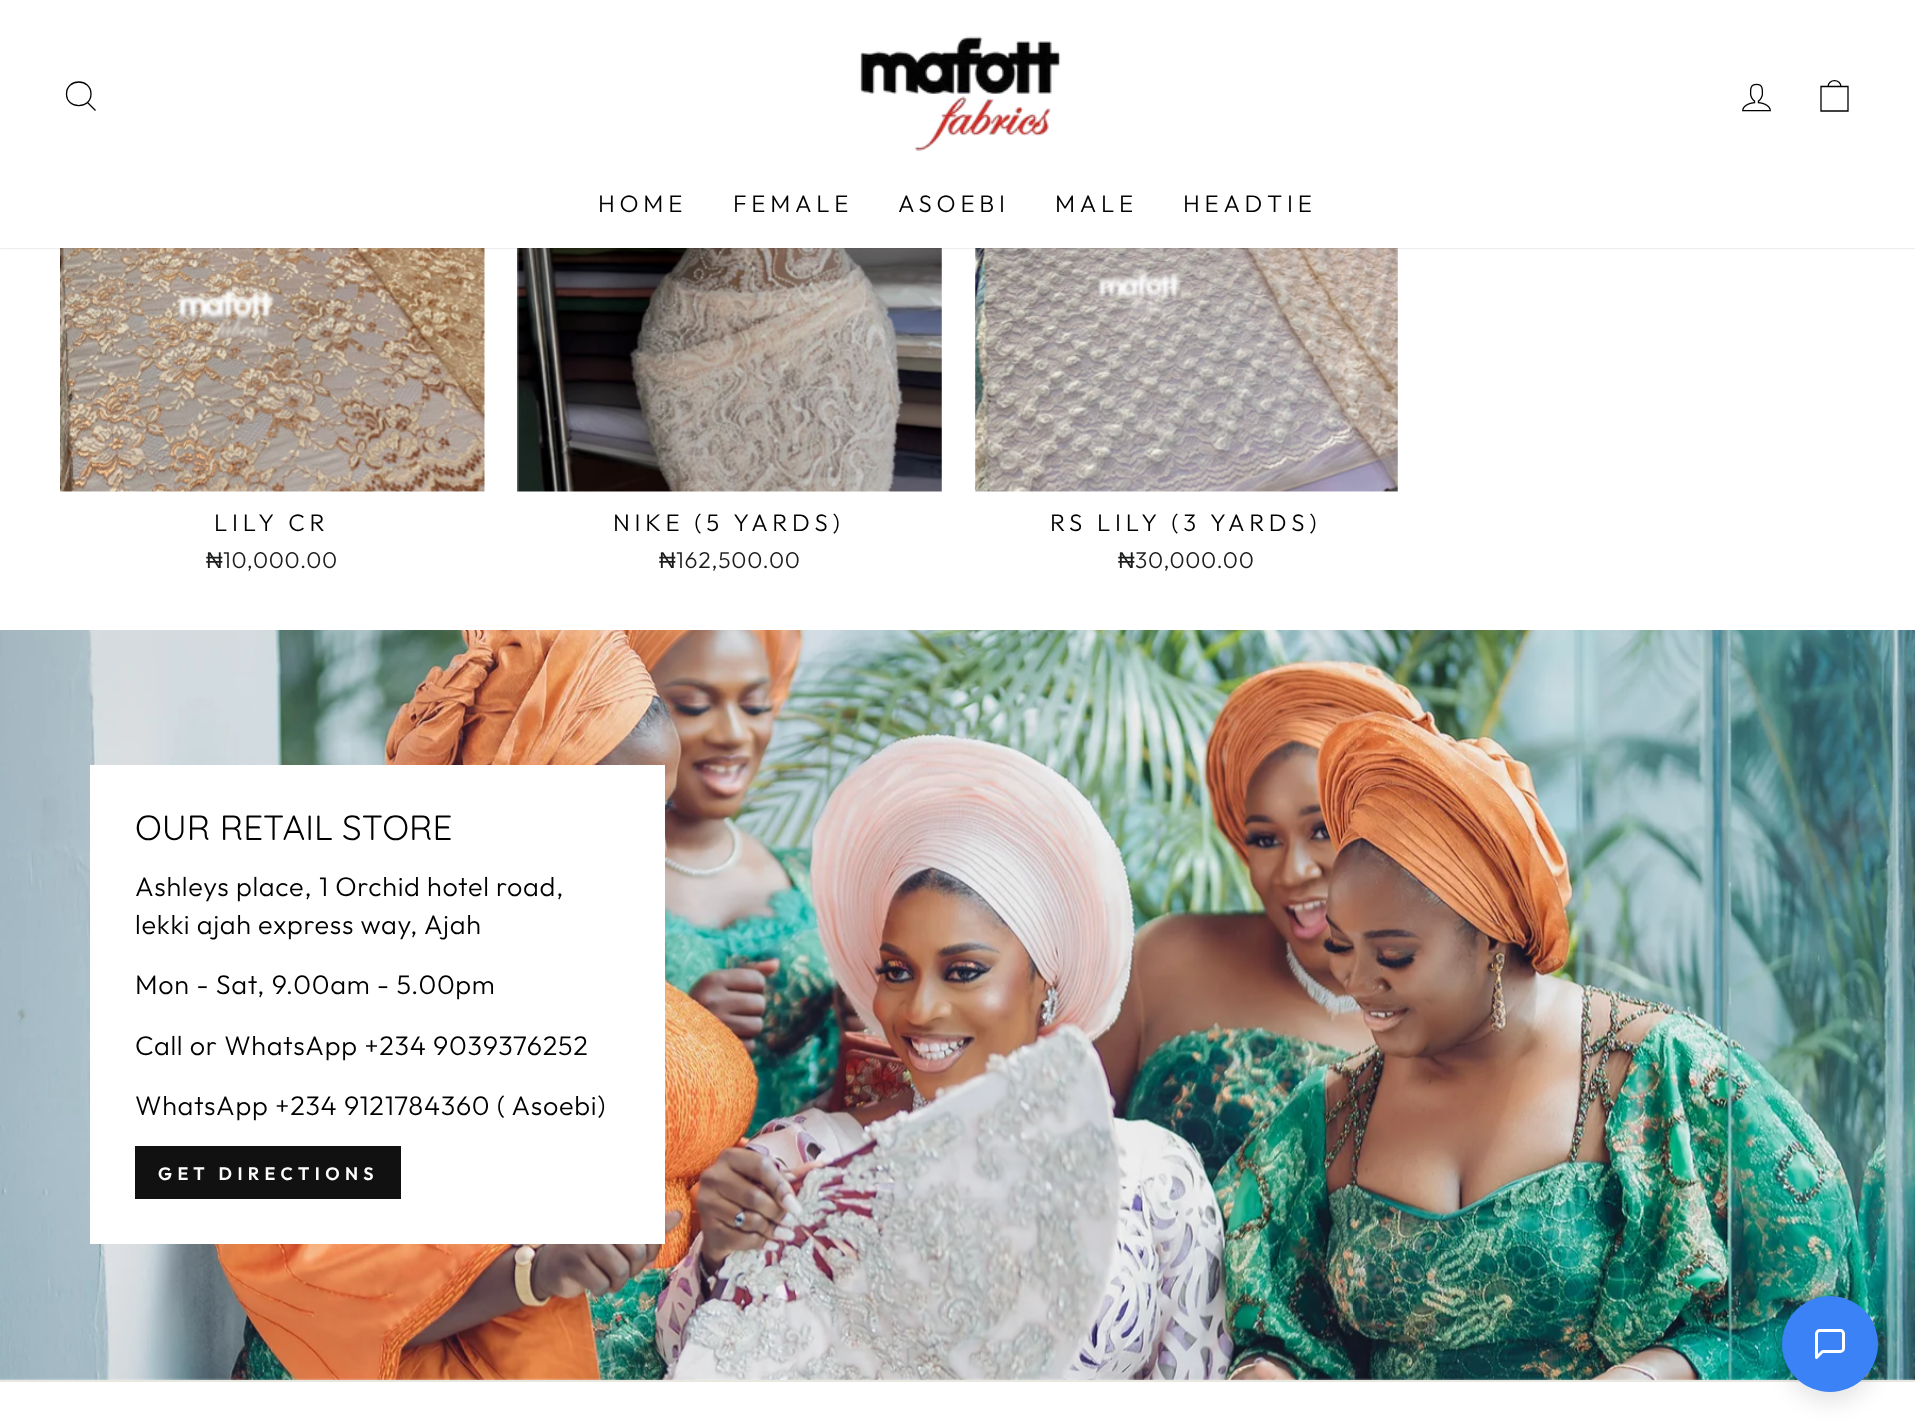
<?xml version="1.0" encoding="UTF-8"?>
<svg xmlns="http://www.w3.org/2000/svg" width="1915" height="1422">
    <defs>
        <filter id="blur1" x="-50%" y="-200%" width="200%" height="500%"><feGaussianBlur stdDeviation="1"/></filter>
        <filter id="blur2" x="-50%" y="-200%" width="200%" height="500%"><feGaussianBlur stdDeviation="11"/></filter>
    </defs>
    <rect width="100%" height="100%" fill="#FFFFFF"/>
    <image x="60" y="248" width="425" height="244" href="img_03.png"/>
    <image x="517" y="248" width="425" height="244" href="img_04.png"/>
    <image x="975" y="248" width="423" height="244" href="img_05.png"/>
    <rect x="0" y="0" width="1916" height="248" fill="#000000" fill-opacity="0.2" filter="url(#blur1)"/>
    <rect x="0" y="0" width="1915" height="248" fill="#FFFFFF"/>
    <path d="M 91 94 C 91 109.5 66.5 109.5 66.5 94 C 66.5 78 91 78 91 94 Z M 95.5 110.5 L 87.5 102.5" fill="none" stroke="#000000" stroke-width="1.3"/>
    <image x="860" y="36" width="201" height="115" href="img_01.png"/>
    <image x="1742" y="83" width="29" height="29" href="img_02.png"/>
    <path d="M 1821 86.5 H 1848 V 111 H 1821 Z M 1828 87 C 1828 78.5 1841 78.5 1841 87" fill="none" stroke="#000000" stroke-width="1.3"/>
    <text x="598" y="212" font-family="Outfit" font-size="24" font-weight="300" letter-spacing="4.75" fill="#000000">HOME</text>
    <text x="733" y="212" font-family="Outfit" font-size="24" font-weight="300" letter-spacing="4.75" fill="#000000">FEMALE</text>
    <text x="898" y="212" font-family="Outfit" font-size="24" font-weight="300" letter-spacing="4.75" fill="#000000">ASOEBI</text>
    <text x="1055" y="212" font-family="Outfit" font-size="24" font-weight="300" letter-spacing="4.75" fill="#000000">MALE</text>
    <text x="1183" y="212" font-family="Outfit" font-size="24" font-weight="300" letter-spacing="4.75" fill="#000000">HEADTIE</text>
    <text x="214" y="531" font-family="Outfit" font-size="24" font-weight="300" letter-spacing="4.75" fill="#000000">LILY CR</text>
    <text x="206" y="568" font-family="Liberation Sans" font-size="23" letter-spacing="0.7" fill="#1C1D1D">₦</text>
    <text x="223" y="568" font-family="Outfit" font-size="23" font-weight="300" letter-spacing="0.7" fill="#1C1D1D">10,000.00</text>
    <text x="613" y="531" font-family="Outfit" font-size="24" font-weight="300" letter-spacing="4.75" fill="#000000">NIKE (5 YARDS)</text>
    <text x="659" y="568" font-family="Liberation Sans" font-size="23" letter-spacing="0.7" fill="#1C1D1D">₦</text>
    <text x="676" y="568" font-family="Outfit" font-size="23" font-weight="300" letter-spacing="0.7" fill="#1C1D1D">162,500.00</text>
    <text x="1050" y="531" font-family="Outfit" font-size="24" font-weight="300" letter-spacing="4.75" fill="#000000">RS LILY (3 YARDS)</text>
    <text x="1118" y="568" font-family="Liberation Sans" font-size="23" letter-spacing="0.7" fill="#1C1D1D">₦</text>
    <text x="1135" y="568" font-family="Outfit" font-size="23" font-weight="300" letter-spacing="0.7" fill="#1C1D1D">30,000.00</text>
    <image x="0" y="630" width="1915" height="750" href="img_06.png"/>
    <rect x="90" y="765" width="575" height="479" fill="#FFFFFF"/>
    <text x="135" y="840" font-family="Quicksand" font-size="35" fill="#000000">OUR RETAIL STORE</text>
    <text font-family="Outfit" font-size="27" font-weight="300" letter-spacing="0.7" fill="#000000">
        <tspan x="135" y="896">Ashleys place, 1 Orchid hotel road,</tspan>
        <tspan x="135" y="934">lekki ajah express way, Ajah</tspan>
    </text>
    <text x="135" y="994" font-family="Outfit" font-size="27" font-weight="300" letter-spacing="0.7" fill="#000000">Mon - Sat, 9.00am - 5.00pm</text>
    <text x="135" y="1055" font-family="Outfit" font-size="27" font-weight="300" letter-spacing="0.7" fill="#000000">Call or WhatsApp +234 9039376252</text>
    <text x="135" y="1115" font-family="Outfit" font-size="27" font-weight="300" letter-spacing="0.7" fill="#000000">WhatsApp +234 9121784360 ( Asoebi)</text>
    <rect x="135" y="1146" width="266" height="53" fill="#111111"/>
    <text x="158" y="1180" font-family="Outfit" font-size="18" font-weight="600" letter-spacing="5.4" fill="#FFFFFF">GET DIRECTIONS</text>
    <rect x="0" y="1380" width="1915" height="2" fill="#E8E8E1"/>
    <rect x="1787" y="1316" width="87" height="87" rx="43.5" fill="#000000" fill-opacity="0.1" filter="url(#blur2)"/>
    <circle cx="1830" cy="1344" r="48" fill="#3B82F6"/>
    <path d="M 1843.5 1348.5 C 1843.5 1350 1842 1351.5 1840.5 1351.5 H 1822.5 L 1816.5 1357.5 V 1333.5 C 1816.5 1332 1818 1330.5 1819.5 1330.5 H 1840.5 C 1842 1330.5 1843.5 1332 1843.5 1333.5 Z" fill="none" stroke="#FFFFFF" stroke-width="3" stroke-linecap="round" stroke-linejoin="round"/>
</svg>
